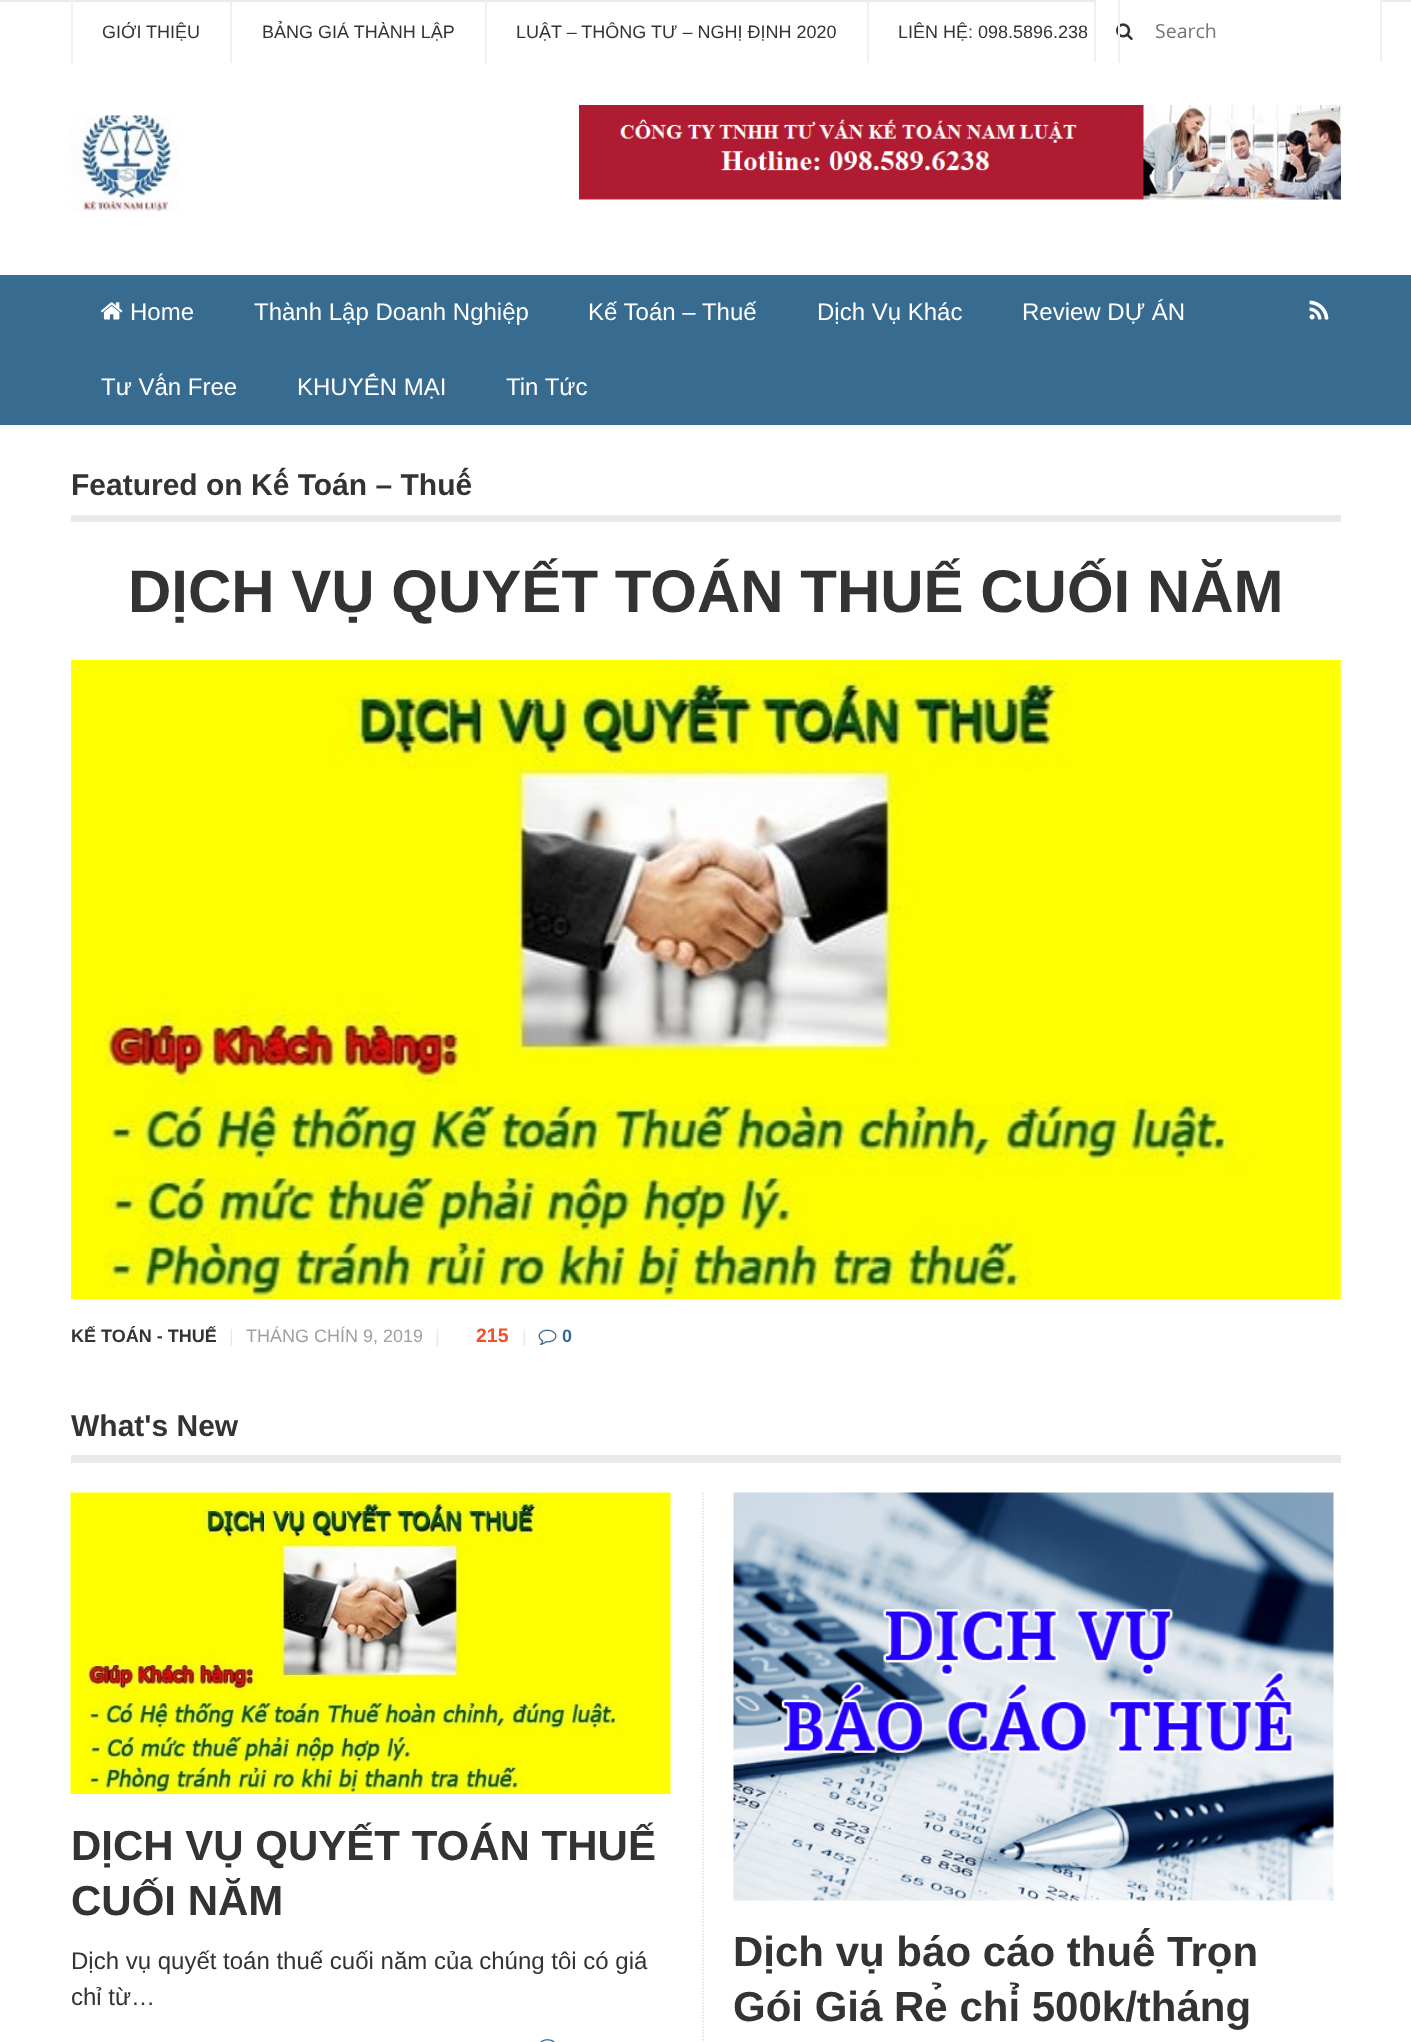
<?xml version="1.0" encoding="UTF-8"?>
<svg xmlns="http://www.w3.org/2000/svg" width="1411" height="2042">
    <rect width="100%" height="100%" fill="#FFFFFF"/>
    <rect x="0" y="0" width="1411" height="2" fill="#EBEBEB"/>
    <rect x="230" y="0" width="2" height="63" fill="#F0F0F0"/>
    <rect x="71" y="0" width="2" height="63" fill="#F0F0F0"/>
    <text x="102" y="38" font-family="Liberation Sans" font-size="18" fill="#333333">GIỚI THIỆU</text>
    <rect x="485" y="0" width="2" height="63" fill="#F0F0F0"/>
    <text x="262" y="38" font-family="Liberation Sans" font-size="18" fill="#333333">BẢNG GIÁ THÀNH LẬP</text>
    <rect x="867" y="0" width="2" height="63" fill="#F0F0F0"/>
    <text x="516" y="38" font-family="Liberation Sans" font-size="18" fill="#333333">LUẬT – THÔNG TƯ – NGHỊ ĐỊNH 2020</text>
    <image x="1116" y="23" width="17" height="18" href="img_01.png"/>
    <rect x="1096" y="0" width="284" height="2" fill="#FFFFFF"/>
    <rect x="1118" y="0" width="2" height="63" fill="#F0F0F0"/>
    <text x="898" y="38" font-family="Liberation Sans" font-size="18" fill="#333333">LIÊN HỆ: 098.5896.238</text>
    <rect x="1380" y="0" width="2" height="62" fill="#F0F0F0"/>
    <rect x="1094" y="0" width="2" height="62" fill="#F0F0F0"/>
    <text x="1155" y="38" font-family="Open Sans" font-size="19.5" fill="#757575">Search</text>
    <image x="70" y="115" width="111" height="97" href="img_02.png"/>
    <image x="579" y="105" width="762" height="95" href="img_03.png"/>
    <rect x="0" y="275" width="1411" height="150" fill="#376B90"/>
    <image x="100" y="302" width="23" height="18" href="img_04.png"/>
    <text x="130" y="320" font-family="Liberation Sans" font-size="24" fill="#FFFFFF">Home</text>
    <text x="254" y="320" font-family="Liberation Sans" font-size="24" fill="#FFFFFF">Thành Lập Doanh Nghiệp</text>
    <text x="588" y="320" font-family="Liberation Sans" font-size="24" fill="#FFFFFF">Kế Toán – Thuế</text>
    <text x="817" y="320" font-family="Liberation Sans" font-size="24" fill="#FFFFFF">Dịch Vụ Khác</text>
    <text x="1022" y="320" font-family="Liberation Sans" font-size="24" fill="#FFFFFF">Review DỰ ÁN</text>
    <text x="101" y="395" font-family="Liberation Sans" font-size="24" fill="#FFFFFF">Tư Vấn Free</text>
    <text x="297" y="395" font-family="Liberation Sans" font-size="24" fill="#FFFFFF">KHUYẾN MẠI</text>
    <text x="506" y="395" font-family="Liberation Sans" font-size="24" fill="#FFFFFF">Tin Tức</text>
    <image x="1309" y="300" width="20" height="20" href="img_05.png"/>
    <rect x="71" y="515" width="1270" height="7" fill="#E9E9E9"/>
    <text x="71" y="495" font-family="Liberation Sans" font-size="30" font-weight="700" fill="#333333">Featured on Kế Toán – Thuế</text>
    <text x="128" y="612" font-family="Liberation Sans" font-size="60" font-weight="700" fill="#333333">DỊCH VỤ QUYẾT TOÁN THUẾ CUỐI NĂM</text>
    <image x="71" y="660" width="1271" height="639" href="img_06.png"/>
    <text x="71" y="1342" font-family="Liberation Sans" font-size="18" font-weight="700" fill="#333333">KẾ TOÁN - THUẾ</text>
    <text x="229" y="1342" font-family="Liberation Sans" font-size="18" fill="#E9E9E9">|</text>
    <text x="246" y="1342" font-family="Liberation Sans" font-size="18" fill="#9F9F9F">THÁNG CHÍN 9, 2019</text>
    <text x="435" y="1342" font-family="Liberation Sans" font-size="18" fill="#E9E9E9">|</text>
    <text x="476" y="1342" font-family="Liberation Sans" font-size="19.5" font-weight="700" fill="#F3502A">215</text>
    <text x="522" y="1342" font-family="Liberation Sans" font-size="18" fill="#E9E9E9">|</text>
    <image x="538" y="1329" width="19" height="17" href="img_07.png"/>
    <text x="562" y="1342" font-family="Liberation Sans" font-size="18" font-weight="700" fill="#376B90">0</text>
    <rect x="71" y="1455" width="1270" height="8" fill="#E9E9E9"/>
    <text x="71" y="1436" font-family="Liberation Sans" font-size="30" font-weight="700" fill="#333333">What's New</text>
    <image x="70" y="1492" width="601" height="302" href="img_08.png"/>
    <text font-family="Liberation Sans" font-size="42" font-weight="700" fill="#333333">
        <tspan x="71" y="1860">DỊCH VỤ QUYẾT TOÁN THUẾ</tspan>
        <tspan x="71" y="1915">CUỐI NĂM</tspan>
    </text>
    <text font-family="Liberation Sans" font-size="24" fill="#333333">
        <tspan x="71" y="1969">Dịch vụ quyết toán thuế cuối năm của chúng tôi có giá</tspan>
        <tspan x="71" y="2005">chỉ từ…</tspan>
    </text>
    <image x="540" y="2039" width="15" height="3" href="img_09.png"/>
    <path d="M 703 1492.5 V 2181" fill="none" stroke="#DDDDDD" stroke-width="1.5" stroke-dasharray="1.5 1.5"/>
    <image x="733" y="1492" width="601" height="409" href="img_10.png"/>
    <text font-family="Liberation Sans" font-size="42" font-weight="700" fill="#333333">
        <tspan x="733" y="1966">Dịch vụ báo cáo thuế Trọn</tspan>
        <tspan x="733" y="2021">Gói Giá Rẻ chỉ 500k/tháng</tspan>
    </text>
</svg>
